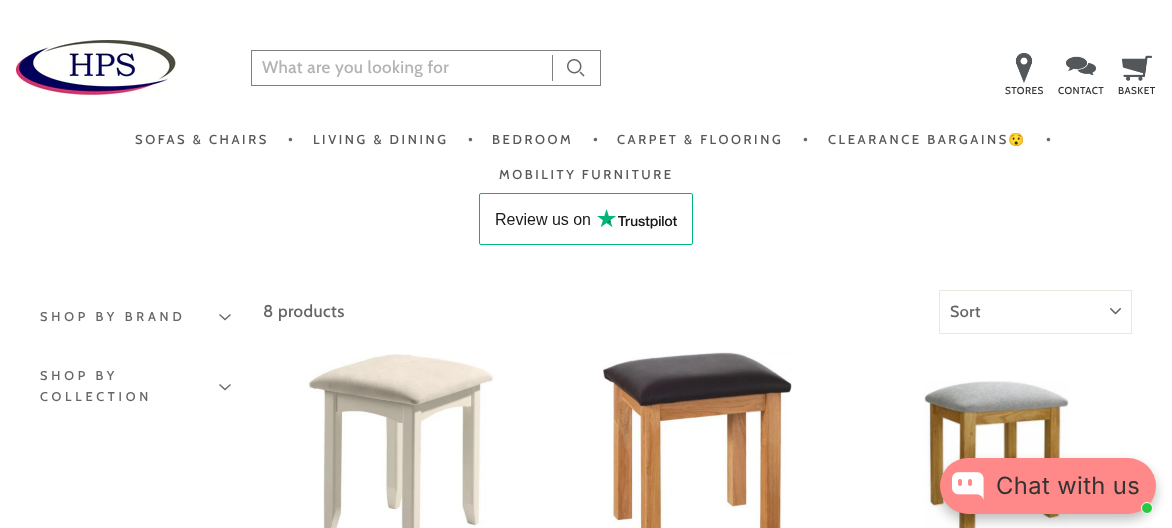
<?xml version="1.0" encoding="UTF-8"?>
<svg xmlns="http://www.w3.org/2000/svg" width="1172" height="528">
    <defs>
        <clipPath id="clip1"><rect x="262" y="57" width="276" height="20"/></clipPath>
        <filter id="blur1" x="-50%" y="-200%" width="200%" height="500%"><feGaussianBlur stdDeviation="6"/></filter>
    </defs>
    <rect width="100%" height="100%" fill="#FFFFFF"/>
    <image x="16" y="40" width="160" height="56" href="img_01.png"/>
    <rect x="251" y="50" width="350" height="1" fill="#808080"/>
    <rect x="251" y="85" width="301" height="1" fill="#808080"/>
    <rect x="251" y="50" width="1" height="36" fill="#808080"/>
    <g clip-path="url(#clip1)">
        <text x="262" y="73" font-family="Cabin" font-size="17" font-weight="500" letter-spacing="0.4" fill="#B3B3B3">What are you looking for</text>
    </g>
    <rect x="600" y="50" width="1" height="36" fill="#808080"/>
    <rect x="552" y="85" width="49" height="1" fill="#808080"/>
    <rect x="552" y="55" width="1" height="26" fill="#808080"/>
    <image x="567" y="59" width="18" height="18" href="img_02.png"/>
    <image x="1015" y="53" width="18" height="30" href="img_03.png"/>
    <text x="1005" y="94" font-family="Cabin" font-size="10" font-weight="500" letter-spacing="0.4" fill="#333333">STORES</text>
    <image x="1066" y="56" width="30" height="19" href="img_04.png"/>
    <text x="1058" y="94" font-family="Cabin" font-size="10" font-weight="500" letter-spacing="0.4" fill="#333333">CONTACT</text>
    <image x="1122" y="55" width="30" height="26" href="img_05.png"/>
    <text x="1118" y="94" font-family="Cabin" font-size="10" font-weight="500" letter-spacing="0.4" fill="#333333">BASKET</text>
    <text x="135" y="144" font-family="Cabin" font-size="13" font-weight="500" letter-spacing="2.6" fill="#575859">SOFAS &amp; CHAIRS</text>
    <text x="288" y="144" font-family="Cabin" font-size="16" font-weight="500" letter-spacing="0.4" fill="#666666">•</text>
    <text x="313" y="144" font-family="Cabin" font-size="13" font-weight="500" letter-spacing="2.6" fill="#575859">LIVING &amp; DINING</text>
    <text x="468" y="144" font-family="Cabin" font-size="16" font-weight="500" letter-spacing="0.4" fill="#666666">•</text>
    <text x="492" y="144" font-family="Cabin" font-size="13" font-weight="500" letter-spacing="2.6" fill="#575859">BEDROOM</text>
    <text x="593" y="144" font-family="Cabin" font-size="16" font-weight="500" letter-spacing="0.4" fill="#666666">•</text>
    <text x="617" y="144" font-family="Cabin" font-size="13" font-weight="500" letter-spacing="2.6" fill="#575859">CARPET &amp; FLOORING</text>
    <text x="803" y="144" font-family="Cabin" font-size="16" font-weight="500" letter-spacing="0.4" fill="#666666">•</text>
    <text x="828" y="144" font-family="Cabin" font-size="13" font-weight="500" letter-spacing="2.6" fill="#575859">CLEARANCE BARGAINS</text>
    <text x="1008" y="144" font-family="Noto Color Emoji" font-size="13" letter-spacing="2.6" fill="#575859">😯</text>
    <text x="1046" y="144" font-family="Cabin" font-size="16" font-weight="500" letter-spacing="0.4" fill="#666666">•</text>
    <text x="499" y="179" font-family="Cabin" font-size="13" font-weight="500" letter-spacing="2.6" fill="#575859">MOBILITY FURNITURE</text>
    <image x="479" y="193" width="214" height="52" href="img_06.png"/>
    <text x="40" y="321" font-family="Cabin" font-size="12.75" font-weight="500" letter-spacing="3.8" fill="#666666">SHOP BY BRAND</text>
    <path d="M 219.5 314.5 L 225 319.5 L 230.5 314.5" fill="none" stroke="#666666" stroke-width="1.3"/>
    <text x="40" y="380" font-family="Cabin" font-size="12.75" font-weight="500" letter-spacing="3.8" fill="#666666">SHOP BY</text>
    <path d="M 219.5 384.5 L 225 389.5 L 230.5 384.5" fill="none" stroke="#666666" stroke-width="1.3"/>
    <text x="40" y="401" font-family="Cabin" font-size="12.75" font-weight="500" letter-spacing="3.8" fill="#666666">COLLECTION</text>
    <text x="263" y="317" font-family="Cabin" font-size="17" font-weight="500" letter-spacing="0.4" fill="#666666">8 products</text>
    <image x="1110" y="308" width="11" height="7" href="img_07.png"/>
    <rect x="939.5" y="290.5" width="192" height="43" fill="none" stroke="#E8E8E1"/>
    <text x="950" y="317" font-family="Cabin" font-size="16" font-weight="500" letter-spacing="0.5" fill="#666666">Sort</text>
    <image x="307" y="354" width="187" height="174" href="img_08.png"/>
    <image x="602" y="352" width="190" height="176" href="img_09.png"/>
    <image x="924" y="381" width="145" height="147" href="img_10.png"/>
    <rect x="940" y="464" width="216" height="56" rx="28" fill="#000000" fill-opacity="0.25" filter="url(#blur1)"/>
    <rect x="940" y="458" width="216" height="56" rx="28" fill="#FF8988"/>
    <image x="952" y="472" width="32" height="28" href="img_11.png"/>
    <text x="996" y="494" font-family="Inter" font-size="23.75" letter-spacing="0.4" fill="#333333">Chat with us</text>
    <circle cx="1147" cy="508" r="5.5" fill="#27CA40" stroke="#FFFFFF"/>
</svg>
